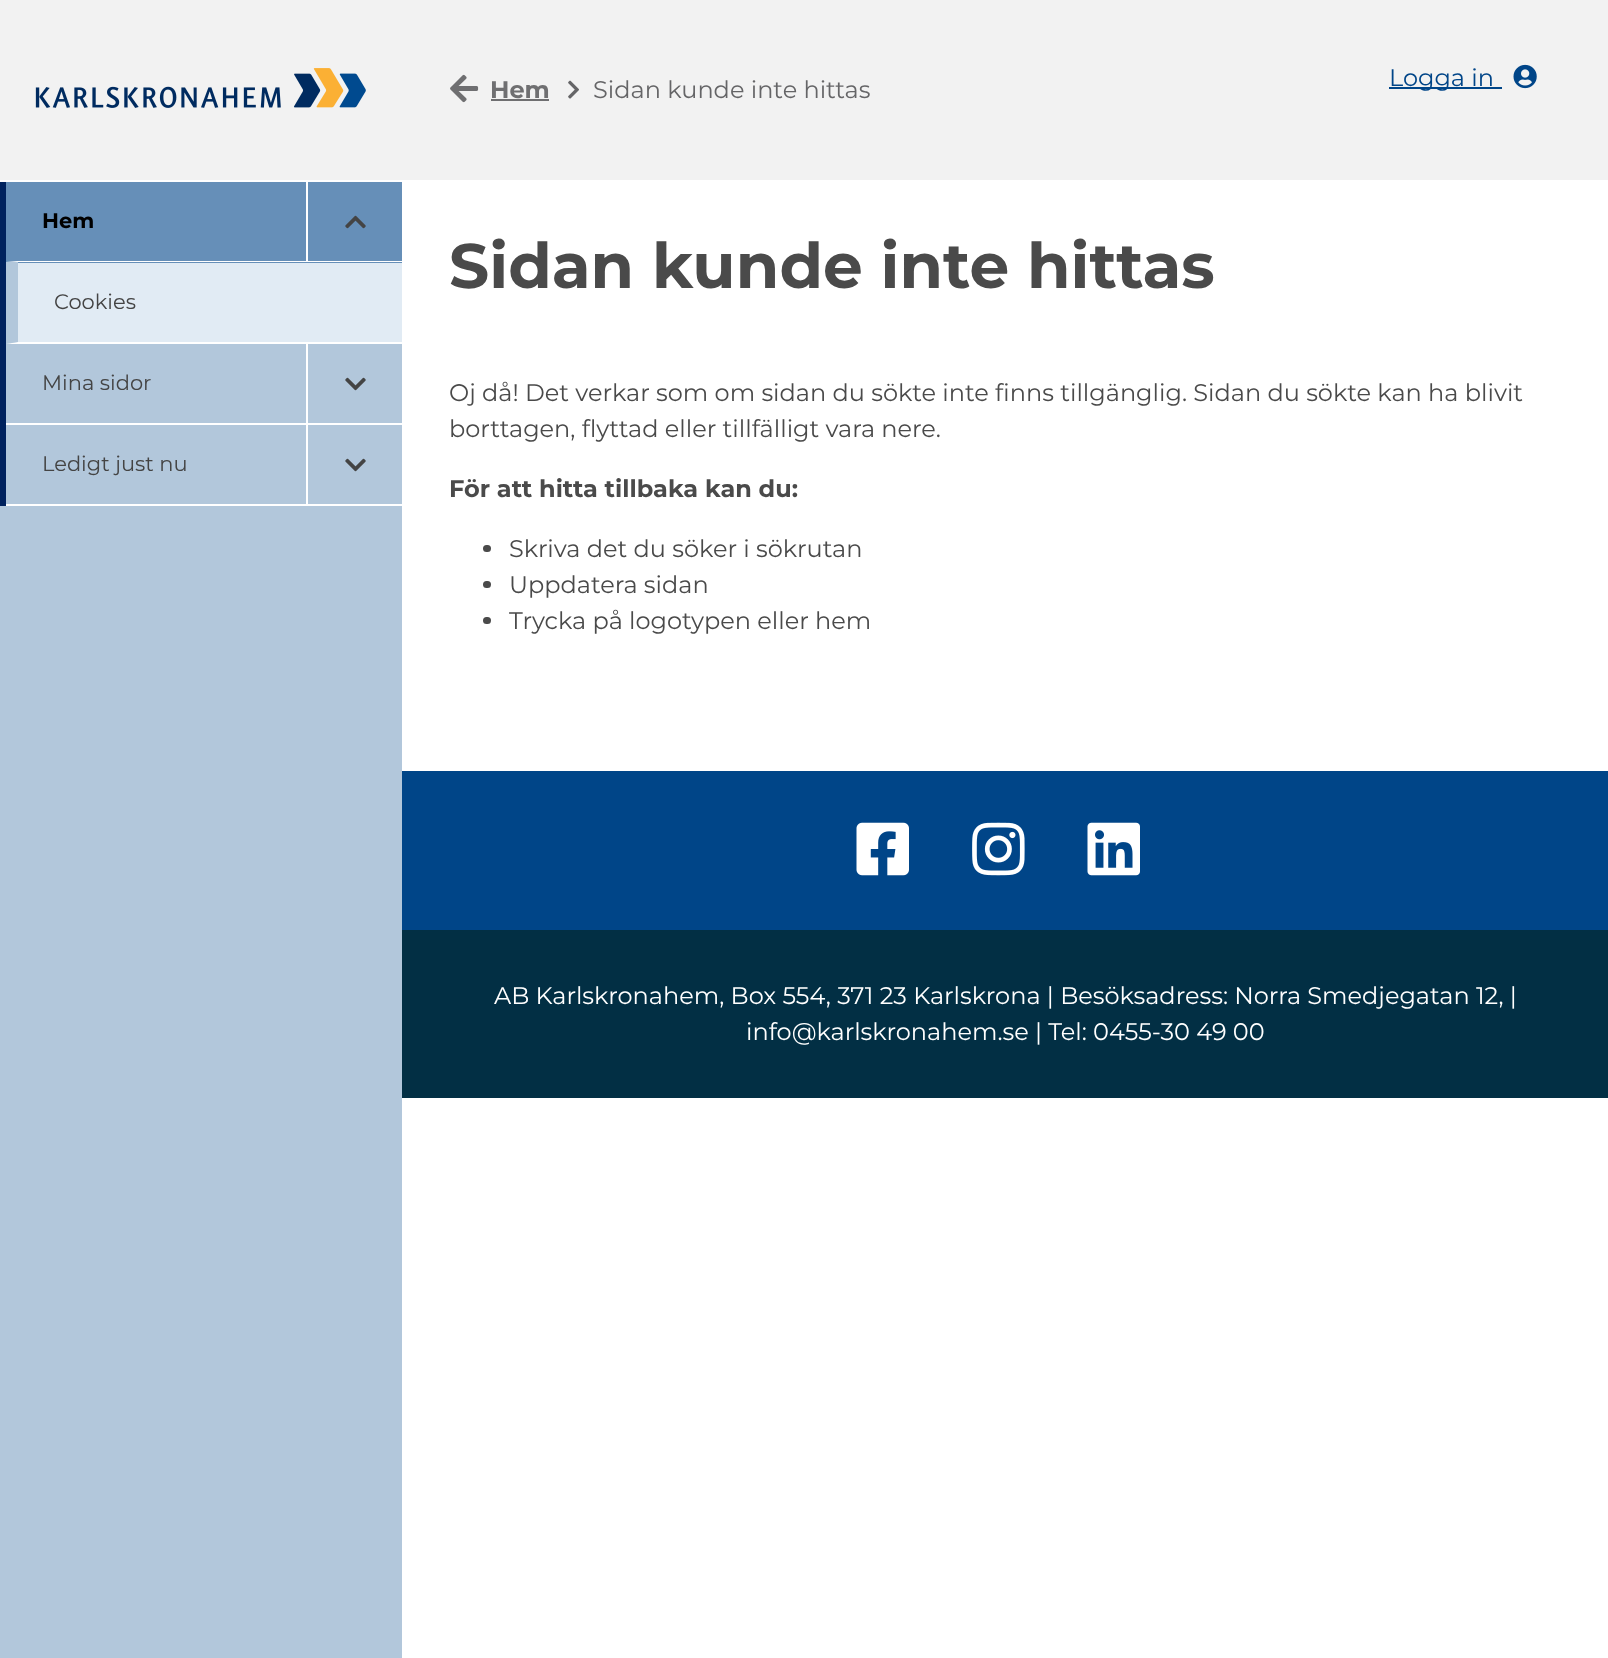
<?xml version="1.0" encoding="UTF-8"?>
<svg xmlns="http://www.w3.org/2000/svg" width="1608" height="1658">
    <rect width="100%" height="100%" fill="#FFFFFF"/>
    <rect x="0" y="344" width="402" height="1314" fill="#B2C7DB"/>
    <rect x="0" y="0" width="402" height="180" fill="#F2F2F2"/>
    <image x="35" y="68" width="331" height="40" href="img_01.png"/>
    <rect x="0" y="182" width="6" height="324" fill="#00225E"/>
    <rect x="6" y="423" width="396" height="2" fill="#FFFFFF"/>
    <rect x="6" y="504" width="396" height="2" fill="#FFFFFF"/>
    <rect x="6" y="182" width="396" height="81" fill="#668FB8"/>
    <path d="M 402 262 H 6 L 18 261 H 402 Z" fill="#FFFFFF"/>
    <text x="42" y="228" font-family="Montserrat" font-size="21" font-weight="700" fill="#000000">Hem</text>
    <rect x="306" y="182" width="2" height="79" fill="#FFFFFF"/>
    <image x="345" y="215" width="21" height="14" href="img_02.png"/>
    <rect x="6" y="263" width="396" height="81" fill="#E1EBF4"/>
    <path d="M 402 344 H 6 L 18 342 H 402 Z" fill="#FFFFFF"/>
    <path d="M 6 344 V 262 H 18 V 342 Z" fill="#B2C7DB"/>
    <text x="54" y="309" font-family="Montserrat" font-size="21" fill="#444444">Cookies</text>
    <text x="42" y="390" font-family="Montserrat" font-size="21" fill="#444444">Mina sidor</text>
    <rect x="306" y="344" width="2" height="79" fill="#FFFFFF"/>
    <image x="345" y="377" width="21" height="14" href="img_03.png"/>
    <text x="42" y="471" font-family="Montserrat" font-size="21" fill="#444444">Ledigt just nu</text>
    <rect x="306" y="425" width="2" height="79" fill="#FFFFFF"/>
    <image x="345" y="458" width="21" height="14" href="img_03.png"/>
    <rect x="402" y="0" width="1206" height="180" fill="#F2F2F2"/>
    <image x="450" y="74" width="29" height="29" href="img_04.png"/>
    <text x="490" y="98" font-family="Montserrat" font-size="24" font-weight="700" fill="#6F6F71">Hem</text>
    <rect x="491" y="99" width="58" height="2" fill="#6F6F71"/>
    <image x="568" y="80" width="11" height="19" href="img_05.png"/>
    <text x="593" y="98" font-family="Montserrat" font-size="24" fill="#656567">Sidan kunde inte hittas</text>
    <rect x="1389" y="87" width="113" height="2" fill="#004588"/>
    <text x="1389" y="86" font-family="Montserrat" font-size="24" fill="#004588">Logga in</text>
    <image x="1513" y="64" width="24" height="25" href="img_06.png"/>
    <text x="449" y="288" font-family="Montserrat" font-size="63" font-weight="700" fill="#4A4A4A">Sidan kunde inte hittas</text>
    <text font-family="Montserrat" font-size="24" fill="#4A4A4A">
        <tspan x="449" y="401">Oj då! Det verkar som om sidan du sökte inte finns tillgänglig. Sidan du sökte kan ha blivit</tspan>
        <tspan x="449" y="437">borttagen, flyttad eller tillfälligt vara nere.</tspan>
    </text>
    <text x="449" y="497" font-family="Montserrat" font-size="24" font-weight="700" fill="#4A4A4A">För att hitta tillbaka kan du:</text>
    <rect x="483" y="545" width="8" height="7" rx="3.5" fill="#4A4A4A"/>
    <text x="509" y="557" font-family="Montserrat" font-size="24" fill="#4A4A4A">Skriva det du söker i sökrutan</text>
    <rect x="483" y="581" width="8" height="7" rx="3.5" fill="#4A4A4A"/>
    <text x="509" y="593" font-family="Montserrat" font-size="24" fill="#4A4A4A">Uppdatera sidan</text>
    <rect x="483" y="617" width="8" height="7" rx="3.5" fill="#4A4A4A"/>
    <text x="509" y="629" font-family="Montserrat" font-size="24" fill="#4A4A4A">Trycka på logotypen eller hem</text>
    <rect x="402" y="771" width="1206" height="159" fill="#004588"/>
    <image x="856" y="822" width="53" height="54" href="img_07.png"/>
    <image x="972" y="822" width="53" height="54" href="img_08.png"/>
    <image x="1087" y="822" width="53" height="54" href="img_09.png"/>
    <rect x="402" y="930" width="1206" height="168" fill="#022F44"/>
    <text x="494" y="1004" font-family="Montserrat" font-size="24" fill="#FFFFFF">AB Karlskronahem, Box 554, 371 23 Karlskrona | Besöksadress: Norra Smedjegatan 12, |</text>
    <text x="746" y="1040" font-family="Montserrat" font-size="24" fill="#FFFFFF">info@karlskronahem.se | Tel: 0455-30 49 00</text>
</svg>
